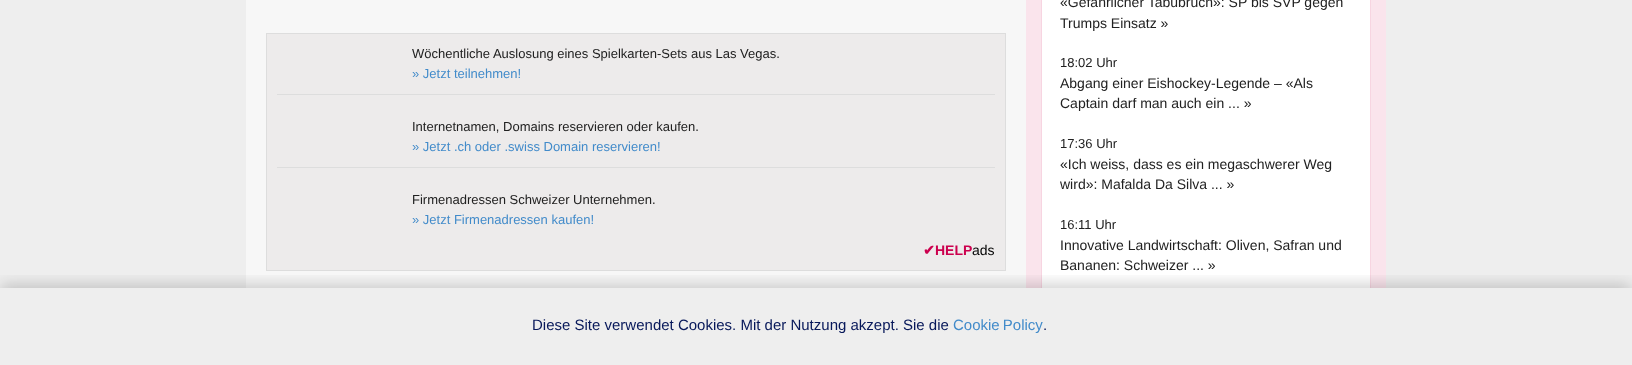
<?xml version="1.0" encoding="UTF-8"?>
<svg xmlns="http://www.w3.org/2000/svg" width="1632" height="365">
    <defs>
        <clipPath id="clip1"><rect x="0" y="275" width="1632" height="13"/></clipPath>
        <filter id="blur1" x="-50%" y="-200%" width="200%" height="500%"><feGaussianBlur stdDeviation="7.5"/></filter>
    </defs>
    <rect width="100%" height="100%" fill="#EEEEEE"/>
    <rect x="246" y="0" width="780" height="288" fill="#F7F7F7"/>
    <rect x="266.5" y="33.5" width="739" height="237" fill="#EDEBEB" stroke="#DDDDDD"/>
    <text x="412" y="58" font-family="Liberation Sans" font-size="13" fill="#212121">Wöchentliche Auslosung eines Spielkarten-Sets aus Las Vegas.</text>
    <text x="412" y="78" font-family="Liberation Sans" font-size="13" fill="#428BCA">» Jetzt teilnehmen!</text>
    <rect x="277" y="94" width="718" height="1" fill="#DDDDDD"/>
    <text x="412" y="131" font-family="Liberation Sans" font-size="13" fill="#212121">Internetnamen, Domains reservieren oder kaufen.</text>
    <text x="412" y="151" font-family="Liberation Sans" font-size="13" fill="#428BCA">» Jetzt .ch oder .swiss Domain reservieren!</text>
    <rect x="277" y="167" width="718" height="1" fill="#DDDDDD"/>
    <text x="412" y="204" font-family="Liberation Sans" font-size="13" fill="#212121">Firmenadressen Schweizer Unternehmen.</text>
    <text x="412" y="224" font-family="Liberation Sans" font-size="13" fill="#428BCA">» Jetzt Firmenadressen kaufen!</text>
    <text x="923" y="255" font-family="DejaVu Sans" font-size="14" font-weight="700" fill="#CC004E">✔</text>
    <text x="935" y="255" font-family="Liberation Sans" font-size="14" font-weight="700" fill="#CC004E">HELP</text>
    <text x="972" y="255" font-family="Liberation Sans" font-size="14" fill="#000000">ads</text>
    <rect x="1026" y="0" width="360" height="288" fill="#FAE4EC"/>
    <rect x="1042" y="0" width="328" height="288" fill="#FFFFFF"/>
    <rect x="1370" y="0" width="1" height="288" fill="#F7D5E1"/>
    <rect x="1041" y="0" width="1" height="288" fill="#F7D5E1"/>
    <text font-family="Liberation Sans" font-size="14" fill="#212121">
        <tspan x="1060" y="7">«Gefährlicher Tabubruch»: SP bis SVP gegen</tspan>
        <tspan x="1060" y="28">Trumps Einsatz »</tspan>
    </text>
    <text x="1060" y="67" font-family="Liberation Sans" font-size="13" fill="#212121">18:02 Uhr</text>
    <text font-family="Liberation Sans" font-size="14" fill="#212121">
        <tspan x="1060" y="88">Abgang einer Eishockey-Legende – «Als</tspan>
        <tspan x="1060" y="108">Captain darf man auch ein ... »</tspan>
    </text>
    <text x="1060" y="148" font-family="Liberation Sans" font-size="13" fill="#212121">17:36 Uhr</text>
    <text font-family="Liberation Sans" font-size="14" fill="#212121">
        <tspan x="1060" y="169">«Ich weiss, dass es ein megaschwerer Weg</tspan>
        <tspan x="1060" y="189">wird»: Mafalda Da Silva ... »</tspan>
    </text>
    <text x="1060" y="229" font-family="Liberation Sans" font-size="13" fill="#212121">16:11 Uhr</text>
    <text font-family="Liberation Sans" font-size="14" fill="#212121">
        <tspan x="1060" y="250">Innovative Landwirtschaft: Oliven, Safran und</tspan>
        <tspan x="1060" y="270">Bananen: Schweizer ... »</tspan>
    </text>
    <g clip-path="url(#clip1)">
        <rect x="1" y="284" width="1630" height="75" fill="#000000" fill-opacity="0.18" filter="url(#blur1)"/>
    </g>
    <text x="532" y="330" font-family="Liberation Sans" font-size="15" fill="#07185A">Diese Site verwendet Cookies. Mit der Nutzung akzept. Sie die</text>
    <text x="953" y="330" word-spacing="-1" font-family="Liberation Sans" font-size="15" fill="#428BCA">Cookie Policy</text>
    <text x="1043" y="330" font-family="Liberation Sans" font-size="15" fill="#07185A">.</text>
</svg>
